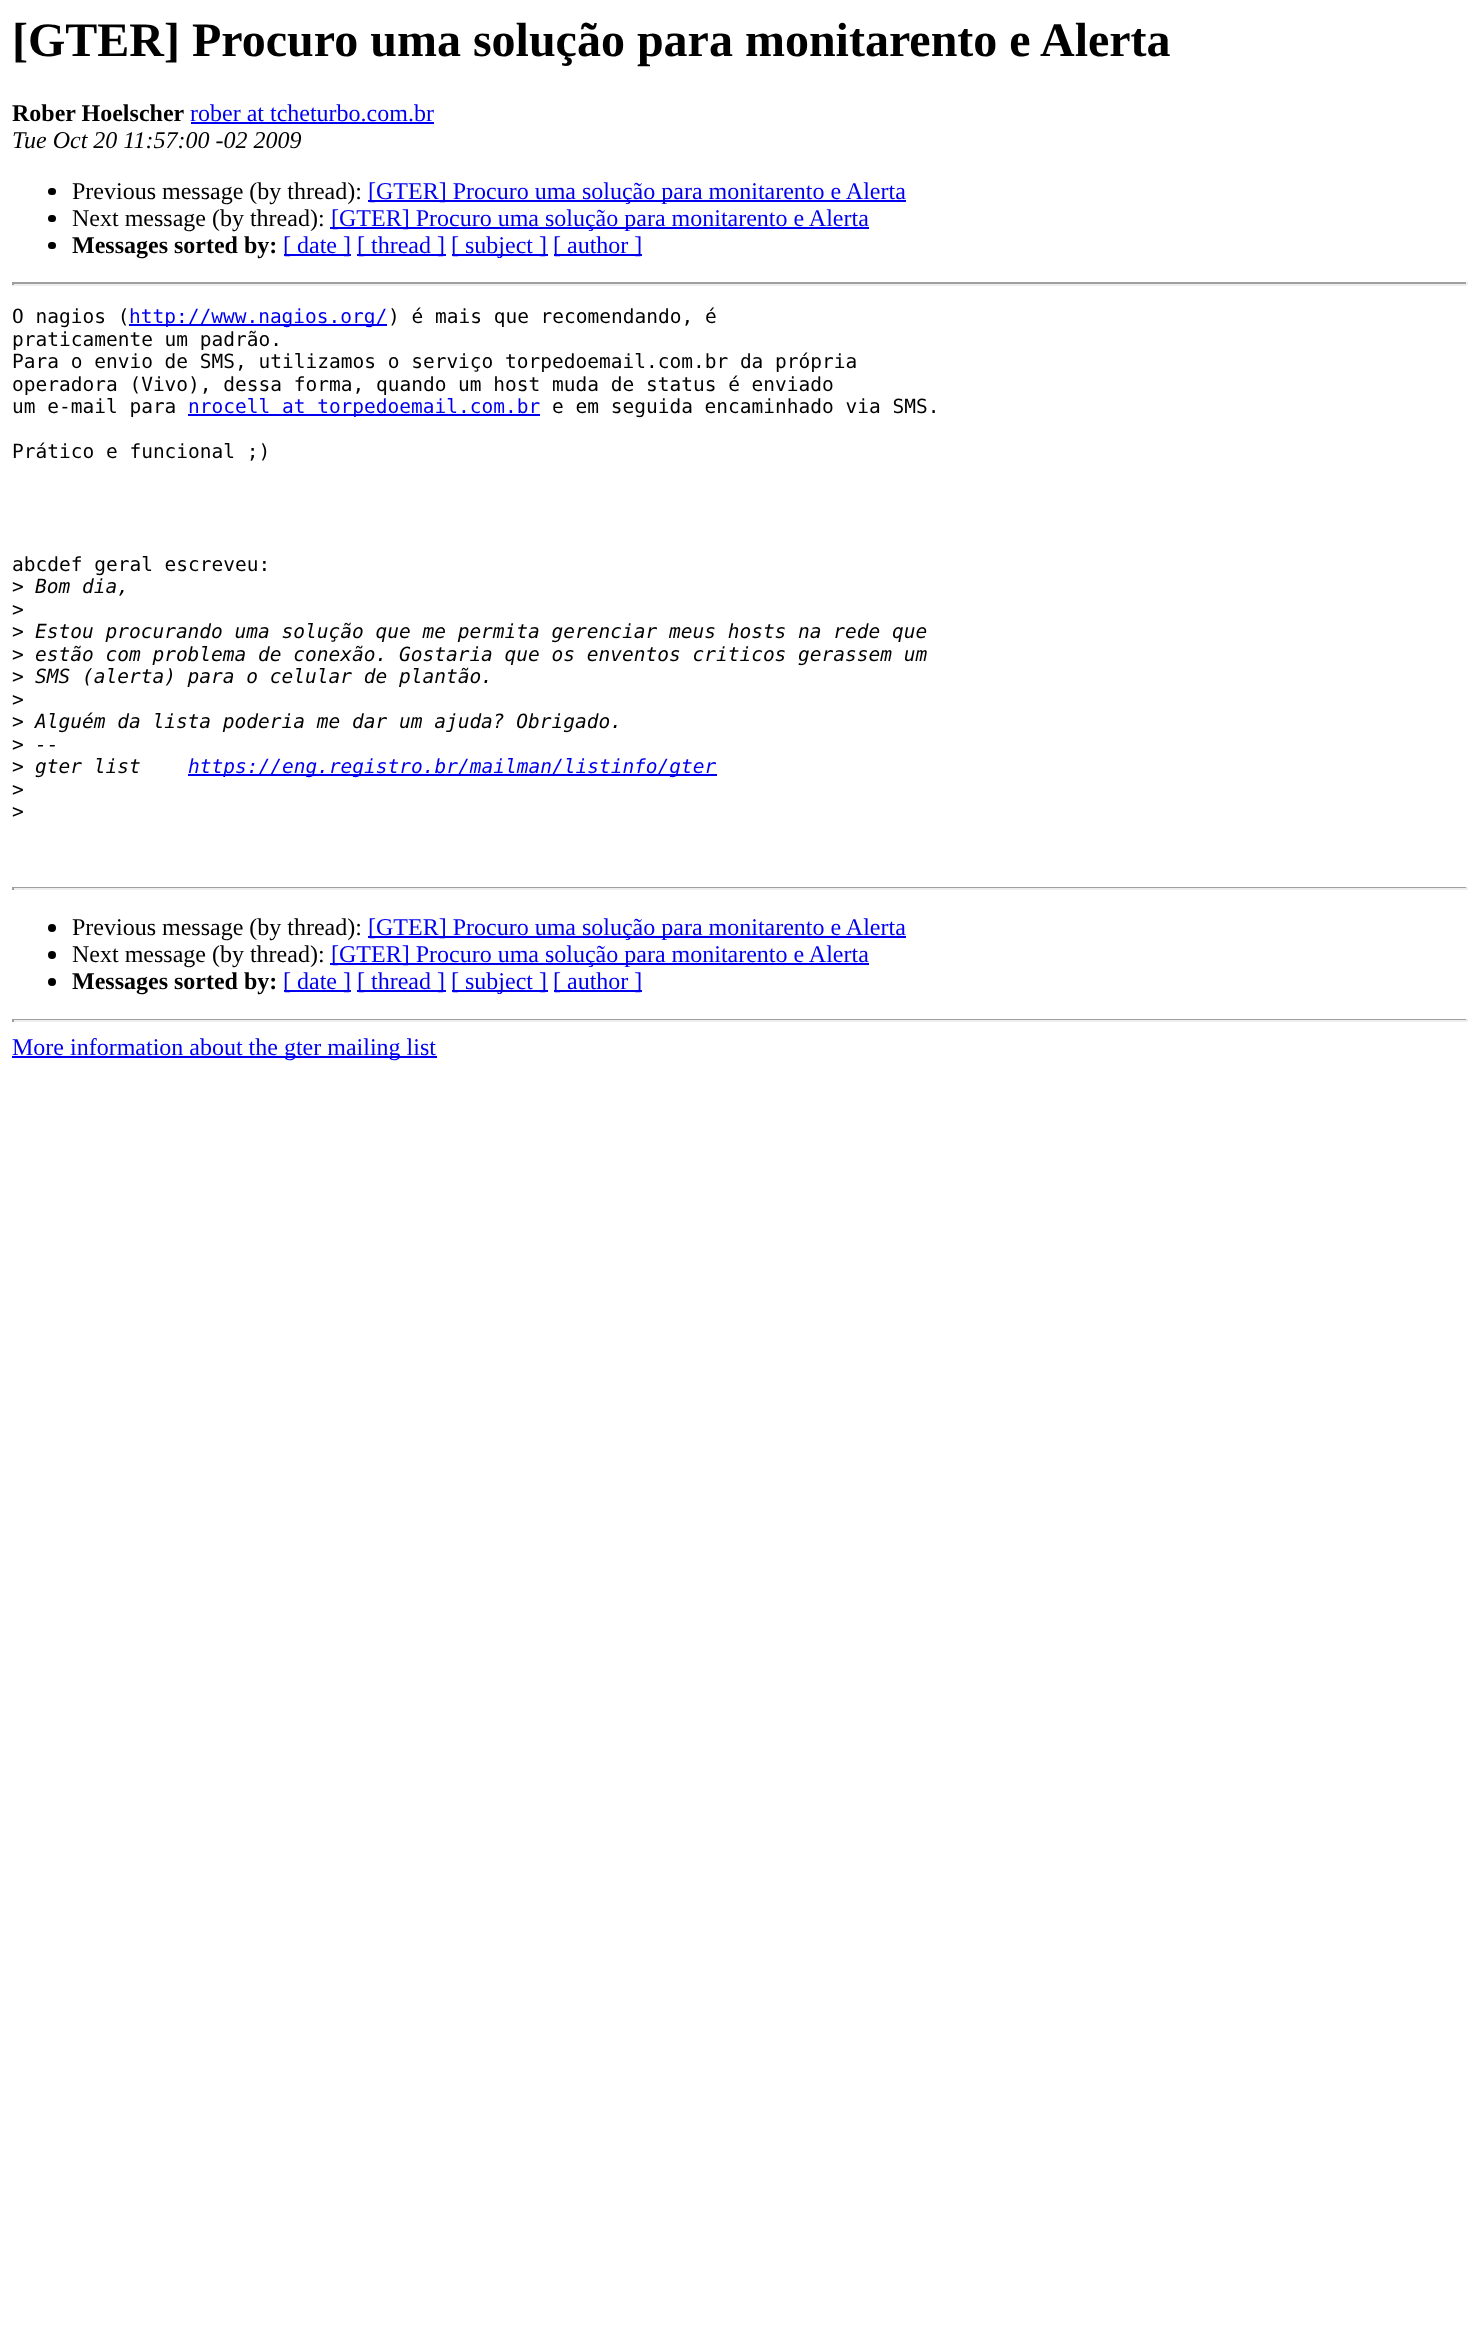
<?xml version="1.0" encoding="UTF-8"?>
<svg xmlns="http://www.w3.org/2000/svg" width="1478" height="2350">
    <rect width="100%" height="100%" fill="#FFFFFF"/>
    <text x="12" y="56" font-family="Liberation Serif" font-size="48" font-weight="700" fill="#000000">[GTER] Procuro uma solução para monitarento e Alerta</text>
    <text x="12" y="121" font-family="Liberation Serif" font-size="24" font-weight="700" fill="#000000">Rober Hoelscher</text>
    <text x="190" y="121" font-family="Liberation Serif" font-size="24" fill="#0000EE">rober at tcheturbo.com.br</text>
    <rect x="191" y="122" width="243" height="2" fill="#0000EE"/>
    <text x="12" y="148" font-family="Liberation Serif" font-size="24" font-style="italic" fill="#000000">Tue Oct 20 11:57:00 -02 2009</text>
    <rect x="48" y="188" width="8" height="7" rx="3.5" fill="#000000"/>
    <text x="72" y="199" font-family="Liberation Serif" font-size="24" fill="#000000">Previous message (by thread):</text>
    <rect x="368" y="200" width="538" height="2" fill="#0000EE"/>
    <text x="368" y="199" font-family="Liberation Serif" font-size="24" fill="#0000EE">[GTER] Procuro uma solução para monitarento e Alerta</text>
    <rect x="48" y="215" width="8" height="7" rx="3.5" fill="#000000"/>
    <text x="72" y="226" font-family="Liberation Serif" font-size="24" fill="#000000">Next message (by thread):</text>
    <rect x="330" y="227" width="539" height="2" fill="#0000EE"/>
    <text x="331" y="226" font-family="Liberation Serif" font-size="24" fill="#0000EE">[GTER] Procuro uma solução para monitarento e Alerta</text>
    <rect x="48" y="242" width="8" height="7" rx="3.5" fill="#000000"/>
    <text x="72" y="253" font-family="Liberation Serif" font-size="24" font-weight="700" fill="#000000">Messages sorted by:</text>
    <rect x="284" y="254" width="67" height="2" fill="#0000EE"/>
    <text x="283" y="253" font-family="Liberation Serif" font-size="24" fill="#0000EE">[ date ]</text>
    <rect x="357" y="254" width="89" height="2" fill="#0000EE"/>
    <text x="357" y="253" font-family="Liberation Serif" font-size="24" fill="#0000EE">[ thread ]</text>
    <rect x="452" y="254" width="96" height="2" fill="#0000EE"/>
    <text x="451" y="253" font-family="Liberation Serif" font-size="24" fill="#0000EE">[ subject ]</text>
    <rect x="554" y="254" width="88" height="2" fill="#0000EE"/>
    <text x="553" y="253" font-family="Liberation Serif" font-size="24" fill="#0000EE">[ author ]</text>
    <rect x="12" y="282" width="1455" height="2" fill="#9F9F9F"/>
    <rect x="1466" y="282" width="2" height="3" fill="#EEEEEE"/>
    <rect x="12" y="284" width="1455" height="2" fill="#EEEEEE"/>
    <rect x="12" y="282" width="2" height="3" fill="#9F9F9F"/>
    <text x="12" y="323" font-family="DejaVu Sans Mono" font-size="19.5" fill="#000000">O nagios (</text>
    <rect x="129" y="324" width="258" height="2" fill="#0000EE"/>
    <text x="129" y="323" font-family="DejaVu Sans Mono" font-size="19.5" fill="#0000EE">http://www.nagios.org/</text>
    <text x="388" y="323" font-family="DejaVu Sans Mono" font-size="19.5" fill="#000000">) é mais que recomendando, é</text>
    <text font-family="DejaVu Sans Mono" font-size="19.5" fill="#000000">
        <tspan x="12" y="346">praticamente um padrão.</tspan>
        <tspan x="12" y="368">Para o envio de SMS, utilizamos o serviço torpedoemail.com.br da própria</tspan>
        <tspan x="12" y="391">operadora (Vivo), dessa forma, quando um host muda de status é enviado</tspan>
        <tspan x="12" y="413">um e-mail para</tspan>
    </text>
    <rect x="188" y="414" width="352" height="2" fill="#0000EE"/>
    <text x="188" y="413" font-family="DejaVu Sans Mono" font-size="19.5" fill="#0000EE">nrocell at torpedoemail.com.br</text>
    <text x="552" y="413" font-family="DejaVu Sans Mono" font-size="19.5" fill="#000000">e em seguida encaminhado via SMS.</text>
    <text x="12" y="458" font-family="DejaVu Sans Mono" font-size="19.5" fill="#000000">Prático e funcional ;)</text>
    <text font-family="DejaVu Sans Mono" font-size="19.5" fill="#000000">
        <tspan x="12" y="571">abcdef geral escreveu:</tspan>
        <tspan x="12" y="593">&gt;</tspan>
    </text>
    <text x="35" y="593" font-family="DejaVu Sans Mono" font-size="19.5" font-style="italic" fill="#000000">Bom dia,</text>
    <text font-family="DejaVu Sans Mono" font-size="19.5" fill="#000000">
        <tspan x="12" y="616">&gt;</tspan>
        <tspan x="12" y="638">&gt;</tspan>
    </text>
    <text x="35" y="638" font-family="DejaVu Sans Mono" font-size="19.5" font-style="italic" fill="#000000">Estou procurando uma solução que me permita gerenciar meus hosts na rede que</text>
    <text x="12" y="661" font-family="DejaVu Sans Mono" font-size="19.5" fill="#000000">&gt;</text>
    <text x="35" y="661" font-family="DejaVu Sans Mono" font-size="19.5" font-style="italic" fill="#000000">estão com problema de conexão. Gostaria que os enventos criticos gerassem um</text>
    <text x="12" y="683" font-family="DejaVu Sans Mono" font-size="19.5" fill="#000000">&gt;</text>
    <text x="35" y="683" font-family="DejaVu Sans Mono" font-size="19.5" font-style="italic" fill="#000000">SMS (alerta) para o celular de plantão.</text>
    <text font-family="DejaVu Sans Mono" font-size="19.5" fill="#000000">
        <tspan x="12" y="706">&gt;</tspan>
        <tspan x="12" y="728">&gt;</tspan>
    </text>
    <text x="35" y="728" font-family="DejaVu Sans Mono" font-size="19.5" font-style="italic" fill="#000000">Alguém da lista poderia me dar um ajuda? Obrigado.</text>
    <text x="12" y="751" font-family="DejaVu Sans Mono" font-size="19.5" fill="#000000">&gt;</text>
    <text x="35" y="751" font-family="DejaVu Sans Mono" font-size="19.5" font-style="italic" fill="#000000">--</text>
    <text x="12" y="773" font-family="DejaVu Sans Mono" font-size="19.5" fill="#000000">&gt;</text>
    <text x="35" y="773" font-family="DejaVu Sans Mono" font-size="19.5" font-style="italic" fill="#000000">gter list</text>
    <rect x="188" y="774" width="529" height="2" fill="#0000EE"/>
    <text x="188" y="773" font-family="DejaVu Sans Mono" font-size="19.5" font-style="italic" fill="#0000EE">https://eng.registro.br/mailman/listinfo/gter</text>
    <text font-family="DejaVu Sans Mono" font-size="19.5" fill="#000000">
        <tspan x="12" y="796">&gt;</tspan>
        <tspan x="12" y="818">&gt;</tspan>
    </text>
    <rect x="12" y="887" width="1455" height="1" fill="#9F9F9F"/>
    <rect x="1466" y="887" width="2" height="3" fill="#EEEEEE"/>
    <rect x="12" y="888" width="1455" height="2" fill="#EEEEEE"/>
    <rect x="12" y="887" width="2" height="3" fill="#9F9F9F"/>
    <circle cx="52" cy="928" r="4" fill="#000000"/>
    <text x="72" y="935" font-family="Liberation Serif" font-size="24" fill="#000000">Previous message (by thread):</text>
    <rect x="368" y="936" width="538" height="2" fill="#0000EE"/>
    <text x="368" y="935" font-family="Liberation Serif" font-size="24" fill="#0000EE">[GTER] Procuro uma solução para monitarento e Alerta</text>
    <circle cx="52" cy="955" r="4" fill="#000000"/>
    <text x="72" y="962" font-family="Liberation Serif" font-size="24" fill="#000000">Next message (by thread):</text>
    <rect x="330" y="963" width="539" height="2" fill="#0000EE"/>
    <text x="331" y="962" font-family="Liberation Serif" font-size="24" fill="#0000EE">[GTER] Procuro uma solução para monitarento e Alerta</text>
    <circle cx="52" cy="982" r="4" fill="#000000"/>
    <text x="72" y="989" font-family="Liberation Serif" font-size="24" font-weight="700" fill="#000000">Messages sorted by:</text>
    <rect x="284" y="990" width="67" height="2" fill="#0000EE"/>
    <text x="283" y="989" font-family="Liberation Serif" font-size="24" fill="#0000EE">[ date ]</text>
    <rect x="357" y="990" width="89" height="2" fill="#0000EE"/>
    <text x="357" y="989" font-family="Liberation Serif" font-size="24" fill="#0000EE">[ thread ]</text>
    <rect x="452" y="990" width="96" height="2" fill="#0000EE"/>
    <text x="451" y="989" font-family="Liberation Serif" font-size="24" fill="#0000EE">[ subject ]</text>
    <rect x="554" y="990" width="88" height="2" fill="#0000EE"/>
    <text x="553" y="989" font-family="Liberation Serif" font-size="24" fill="#0000EE">[ author ]</text>
    <rect x="12" y="1019" width="1455" height="1" fill="#9F9F9F"/>
    <rect x="1466" y="1019" width="2" height="3" fill="#EEEEEE"/>
    <rect x="12" y="1020" width="1455" height="2" fill="#EEEEEE"/>
    <rect x="12" y="1019" width="2" height="3" fill="#9F9F9F"/>
    <rect x="12" y="1056" width="425" height="2" fill="#0000EE"/>
    <text x="12" y="1055" font-family="Liberation Serif" font-size="24" fill="#0000EE">More information about the gter mailing list</text>
</svg>
